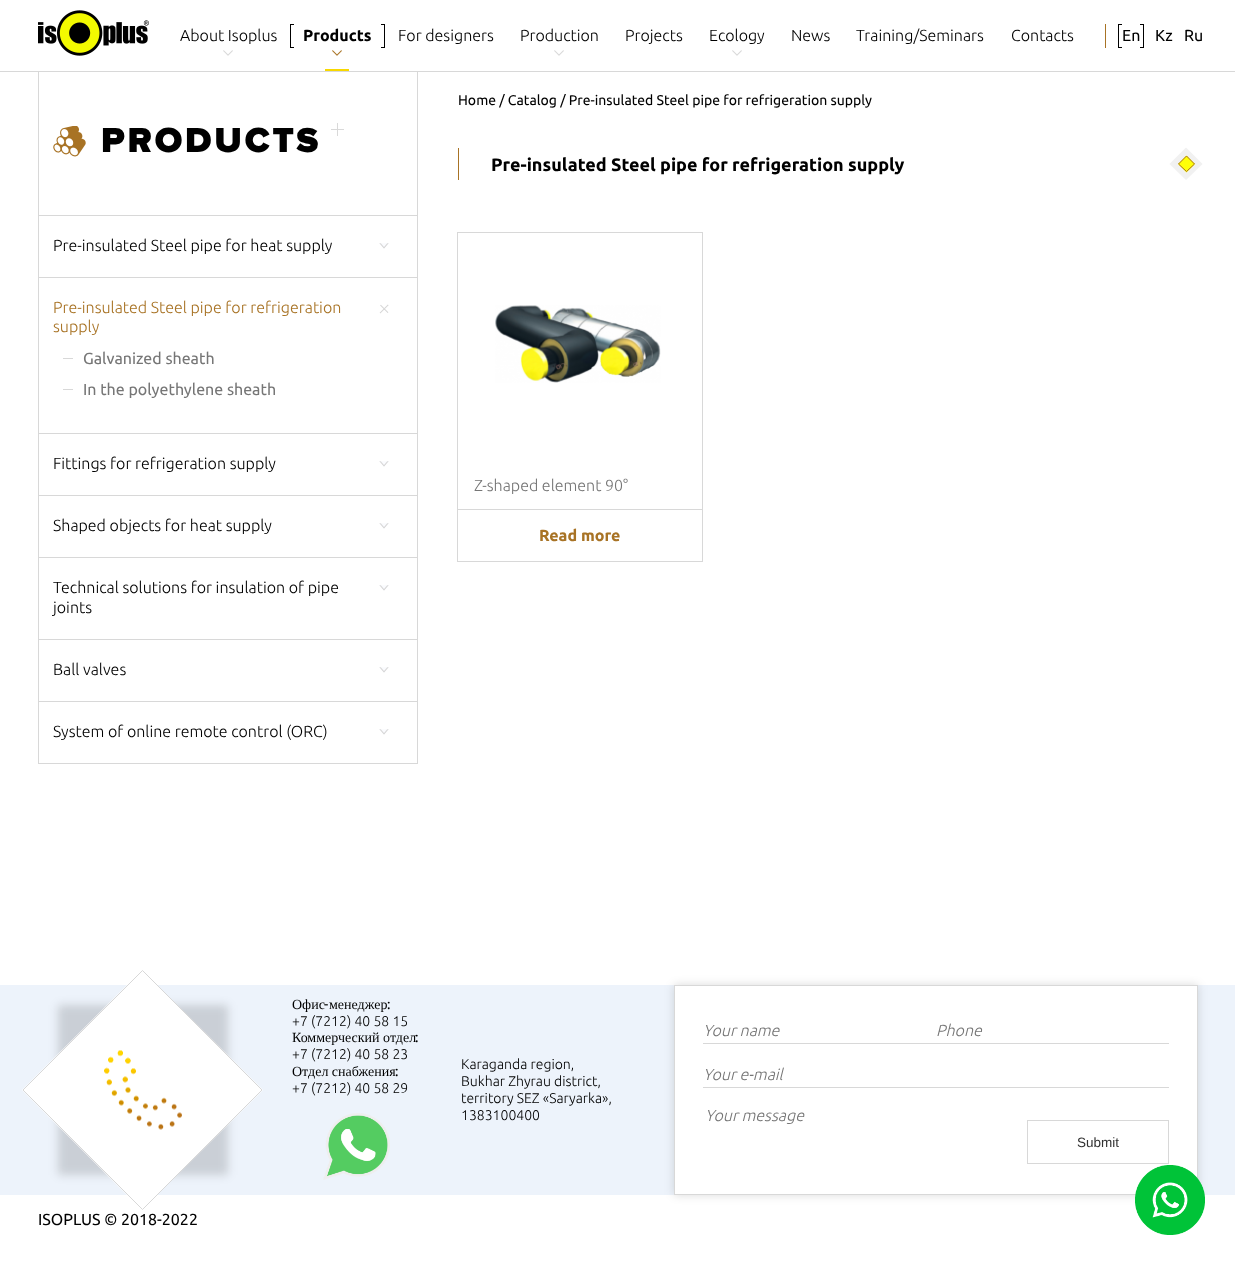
<?xml version="1.0" encoding="UTF-8"?>
<svg xmlns="http://www.w3.org/2000/svg" width="1235" height="1265">
    <defs>
        <filter id="blur1" x="-50%" y="-200%" width="200%" height="500%"><feGaussianBlur stdDeviation="5"/></filter>
    </defs>
    <rect width="100%" height="100%" fill="#FFFFFF"/>
    <image x="38" y="10" width="111" height="46" href="img_01.png"/>
    <text x="180" y="41" font-family="Ubuntu" font-size="16" font-weight="300" fill="#000000">About Isoplus</text>
    <image x="223" y="50" width="10" height="6" href="img_02.png"/>
    <rect x="290.5" y="24.5" width="94" height="23" fill="none" stroke="#000000"/>
    <rect x="294" y="24" width="87" height="24" fill="#FFFFFF"/>
    <text x="303" y="41" font-family="Ubuntu" font-size="16" font-weight="700" fill="#000000">Products</text>
    <image x="332" y="50" width="10" height="6" href="img_03.png"/>
    <rect x="325" y="69" width="24" height="2" fill="#F8D800"/>
    <text x="398" y="41" font-family="Ubuntu" font-size="16" font-weight="300" fill="#000000">For designers</text>
    <text x="520" y="41" font-family="Ubuntu" font-size="16" font-weight="300" fill="#000000">Production</text>
    <image x="554" y="50" width="10" height="6" href="img_02.png"/>
    <text x="625" y="41" font-family="Ubuntu" font-size="16" font-weight="300" fill="#000000">Projects</text>
    <text x="709" y="41" font-family="Ubuntu" font-size="16" font-weight="300" fill="#000000">Ecology</text>
    <image x="732" y="50" width="10" height="6" href="img_02.png"/>
    <text x="791" y="41" font-family="Ubuntu" font-size="16" font-weight="300" fill="#000000">News</text>
    <text x="856" y="41" font-family="Ubuntu" font-size="16" font-weight="300" fill="#000000">Training/Seminars</text>
    <text x="1011" y="41" font-family="Ubuntu" font-size="16" font-weight="300" fill="#000000">Contacts</text>
    <rect x="1105" y="24" width="1" height="24" fill="#A87325"/>
    <rect x="1118.5" y="24.5" width="25" height="23" fill="none" stroke="#000000"/>
    <rect x="1122" y="24" width="18" height="24" fill="#FFFFFF"/>
    <text x="1122" y="41" font-family="Ubuntu" font-size="16" fill="#000000">En</text>
    <text x="1155" y="41" font-family="Ubuntu" font-size="16" fill="#000000">Kz</text>
    <text x="1184" y="41" font-family="Ubuntu" font-size="16" fill="#000000">Ru</text>
    <rect x="0" y="71" width="1235" height="1" fill="#D8D8D8"/>
    <rect x="417" y="72" width="1" height="692" fill="#D8D8D8"/>
    <rect x="38" y="72" width="1" height="692" fill="#D8D8D8"/>
    <rect x="39" y="215" width="378" height="1" fill="#D8D8D8"/>
    <image x="53" y="126" width="33" height="31" href="img_04.png"/>
    <text x="101" y="152" font-family="Proxima Nova" font-size="36" font-weight="900" letter-spacing="2.75" fill="#000000">PRODUCTS</text>
    <image x="331" y="123" width="13" height="13" href="img_05.png"/>
    <rect x="39" y="277" width="378" height="1" fill="#D8D8D8"/>
    <text x="53" y="251" font-family="Ubuntu" font-size="16" font-weight="300" fill="#000000">Pre-insulated Steel pipe for heat supply</text>
    <image x="379" y="243" width="10" height="6" href="img_06.png"/>
    <rect x="39" y="433" width="378" height="1" fill="#D8D8D8"/>
    <text x="53" y="313" font-family="Ubuntu" font-size="16" font-weight="300" fill="#A87325">Pre-insulated Steel pipe for refrigeration</text>
    <image x="379" y="304" width="10" height="10" href="img_07.png"/>
    <text x="53" y="332" font-family="Ubuntu" font-size="16" font-weight="300" fill="#A87325">supply</text>
    <rect x="63" y="358" width="10" height="1" fill="#D8D8D8"/>
    <text x="83" y="364" font-family="Ubuntu" font-size="16" fill="#767676">Galvanized sheath</text>
    <rect x="63" y="389" width="10" height="1" fill="#D8D8D8"/>
    <text x="83" y="395" font-family="Ubuntu" font-size="16" fill="#767676">In the polyethylene sheath</text>
    <rect x="39" y="495" width="378" height="1" fill="#D8D8D8"/>
    <text x="53" y="469" font-family="Ubuntu" font-size="16" font-weight="300" fill="#000000">Fittings for refrigeration supply</text>
    <image x="379" y="461" width="10" height="6" href="img_06.png"/>
    <rect x="39" y="557" width="378" height="1" fill="#D8D8D8"/>
    <text x="53" y="531" font-family="Ubuntu" font-size="16" font-weight="300" fill="#000000">Shaped objects for heat supply</text>
    <image x="379" y="523" width="10" height="6" href="img_06.png"/>
    <rect x="39" y="639" width="378" height="1" fill="#D8D8D8"/>
    <text x="53" y="593" font-family="Ubuntu" font-size="16" font-weight="300" fill="#000000">Technical solutions for insulation of pipe</text>
    <image x="379" y="585" width="10" height="6" href="img_06.png"/>
    <text x="53" y="613" font-family="Ubuntu" font-size="16" font-weight="300" fill="#000000">joints</text>
    <rect x="39" y="701" width="378" height="1" fill="#D8D8D8"/>
    <text x="53" y="675" font-family="Ubuntu" font-size="16" font-weight="300" fill="#000000">Ball valves</text>
    <image x="379" y="667" width="10" height="6" href="img_06.png"/>
    <rect x="39" y="763" width="378" height="1" fill="#D8D8D8"/>
    <text x="53" y="737" font-family="Ubuntu" font-size="16" font-weight="300" fill="#000000">System of online remote control (ORC)</text>
    <image x="379" y="729" width="10" height="6" href="img_06.png"/>
    <text x="458" y="105" font-family="Ubuntu" font-size="14" fill="#000000">Home / Catalog / Pre-insulated Steel pipe for refrigeration supply</text>
    <rect x="458" y="148" width="1" height="32" fill="#A87325"/>
    <path d="M 1186 147.5 L 1202.5 164 L 1186 180 L 1169.5 164 Z" fill="#F1F1F1"/>
    <text x="491" y="171" font-family="Ubuntu" font-size="18" font-weight="700" fill="#000000">Pre-insulated St</text>
    <text x="629" y="171" font-family="Ubuntu" font-size="18" font-weight="700" fill="#000000">eel pipe for refriger</text>
    <text x="799" y="171" font-family="Ubuntu" font-size="18" font-weight="700" fill="#000000">ation supply</text>
    <path d="M 1186.5 155.5 L 1195 164 L 1186.5 172.5 L 1178 164 Z" fill="#FFFF08"/>
    <path d="M 1186.5 156 L 1194.5 164 L 1186.5 171.5 L 1178.5 164 Z" fill="none" stroke="#A87325"/>
    <rect x="457.5" y="232.5" width="245" height="329" fill="none" stroke="#D8D8D8"/>
    <image x="495" y="305" width="166" height="78" href="img_08.png"/>
    <text x="474" y="491" font-family="Ubuntu" font-size="16" font-weight="300" fill="#767676">Z-shaped element 90°</text>
    <rect x="458" y="509" width="244" height="1" fill="#D8D8D8"/>
    <text x="539" y="541" font-family="Ubuntu" font-size="16" font-weight="700" fill="#A87325">Read more</text>
    <rect x="0" y="985" width="1235" height="210" fill="#EDF3FB"/>
    <rect x="58" y="1005" width="170" height="170" fill="#000000" fill-opacity="0.15" filter="url(#blur1)"/>
    <path d="M 142 970 L 263 1090 L 142 1210 L 22 1090 Z" fill="#FFFFFF"/>
    <path d="M 142.5 970.5 L 262 1090 L 142.5 1209.5 L 23 1090 Z" fill="none" stroke="#D8D8D8"/>
    <image x="104" y="1050" width="78" height="80" href="img_09.png"/>
    <text x="292" y="1009" font-family="Liberation Serif" font-size="14" fill="#000000">Офис</text>
    <text x="324" y="1009" font-family="Ubuntu" font-size="14" fill="#000000">-</text>
    <text x="329" y="1009" font-family="Liberation Serif" font-size="14" fill="#000000">менеджер</text>
    <text x="387" y="1009" font-family="Ubuntu" font-size="14" fill="#000000">:</text>
    <text x="292" y="1026" font-family="Ubuntu" font-size="14" font-weight="300" fill="#000000">+7 (7212) 40 58 15</text>
    <text x="292" y="1042" font-family="Liberation Serif" font-size="14" fill="#000000">Коммерческий отдел</text>
    <text x="415" y="1042" font-family="Ubuntu" font-size="14" fill="#000000">:</text>
    <text x="292" y="1059" font-family="Ubuntu" font-size="14" font-weight="300" fill="#000000">+7 (7212) 40 58 23</text>
    <text x="292" y="1076" font-family="Liberation Serif" font-size="14" fill="#000000">Отдел снабжения</text>
    <text x="395" y="1076" font-family="Ubuntu" font-size="14" fill="#000000">:</text>
    <text x="292" y="1093" font-family="Ubuntu" font-size="14" font-weight="300" fill="#000000">+7 (7212) 40 58 29</text>
    <image x="323" y="1113" width="67" height="67" href="img_10.png"/>
    <text font-family="Ubuntu" font-size="14" font-weight="300" fill="#000000">
        <tspan x="461" y="1069">Karaganda region,</tspan>
        <tspan x="461" y="1086">Bukhar Zhyrau district,</tspan>
        <tspan x="461" y="1103">territory SEZ «Saryarka»,</tspan>
        <tspan x="461" y="1120">1383100400</tspan>
    </text>
    <rect x="674" y="985" width="524" height="210" fill="#000000" fill-opacity="0.15" filter="url(#blur1)"/>
    <rect x="674.5" y="985.5" width="523" height="209" fill="#FFFFFF" stroke="#D8D8D8"/>
    <rect x="703" y="1043" width="466" height="1" fill="#D8D8D8"/>
    <text x="703" y="1036" font-family="Ubuntu" font-size="16" font-weight="300" font-style="italic" fill="#767676">Your name</text>
    <text x="936" y="1036" font-family="Ubuntu" font-size="16" font-weight="300" font-style="italic" fill="#767676">Phone</text>
    <rect x="703" y="1087" width="466" height="1" fill="#D8D8D8"/>
    <text x="703" y="1080" font-family="Ubuntu" font-size="16" font-weight="300" font-style="italic" fill="#767676">Your e-mail</text>
    <text x="705" y="1121" font-family="Ubuntu" font-size="16" font-weight="300" font-style="italic" fill="#767676">Your message</text>
    <rect x="1027.5" y="1120.5" width="141" height="43" fill="none" stroke="#D8D8D8"/>
    <text x="1077" y="1147" font-family="Liberation Sans" font-size="13.5" fill="#323232">Submit</text>
    <text x="38" y="1225" font-family="Ubuntu" font-size="16" fill="#000000">ISOPLUS © 2018-2022</text>
    <image x="1135" y="1165" width="70" height="70" href="img_11.png"/>
</svg>
